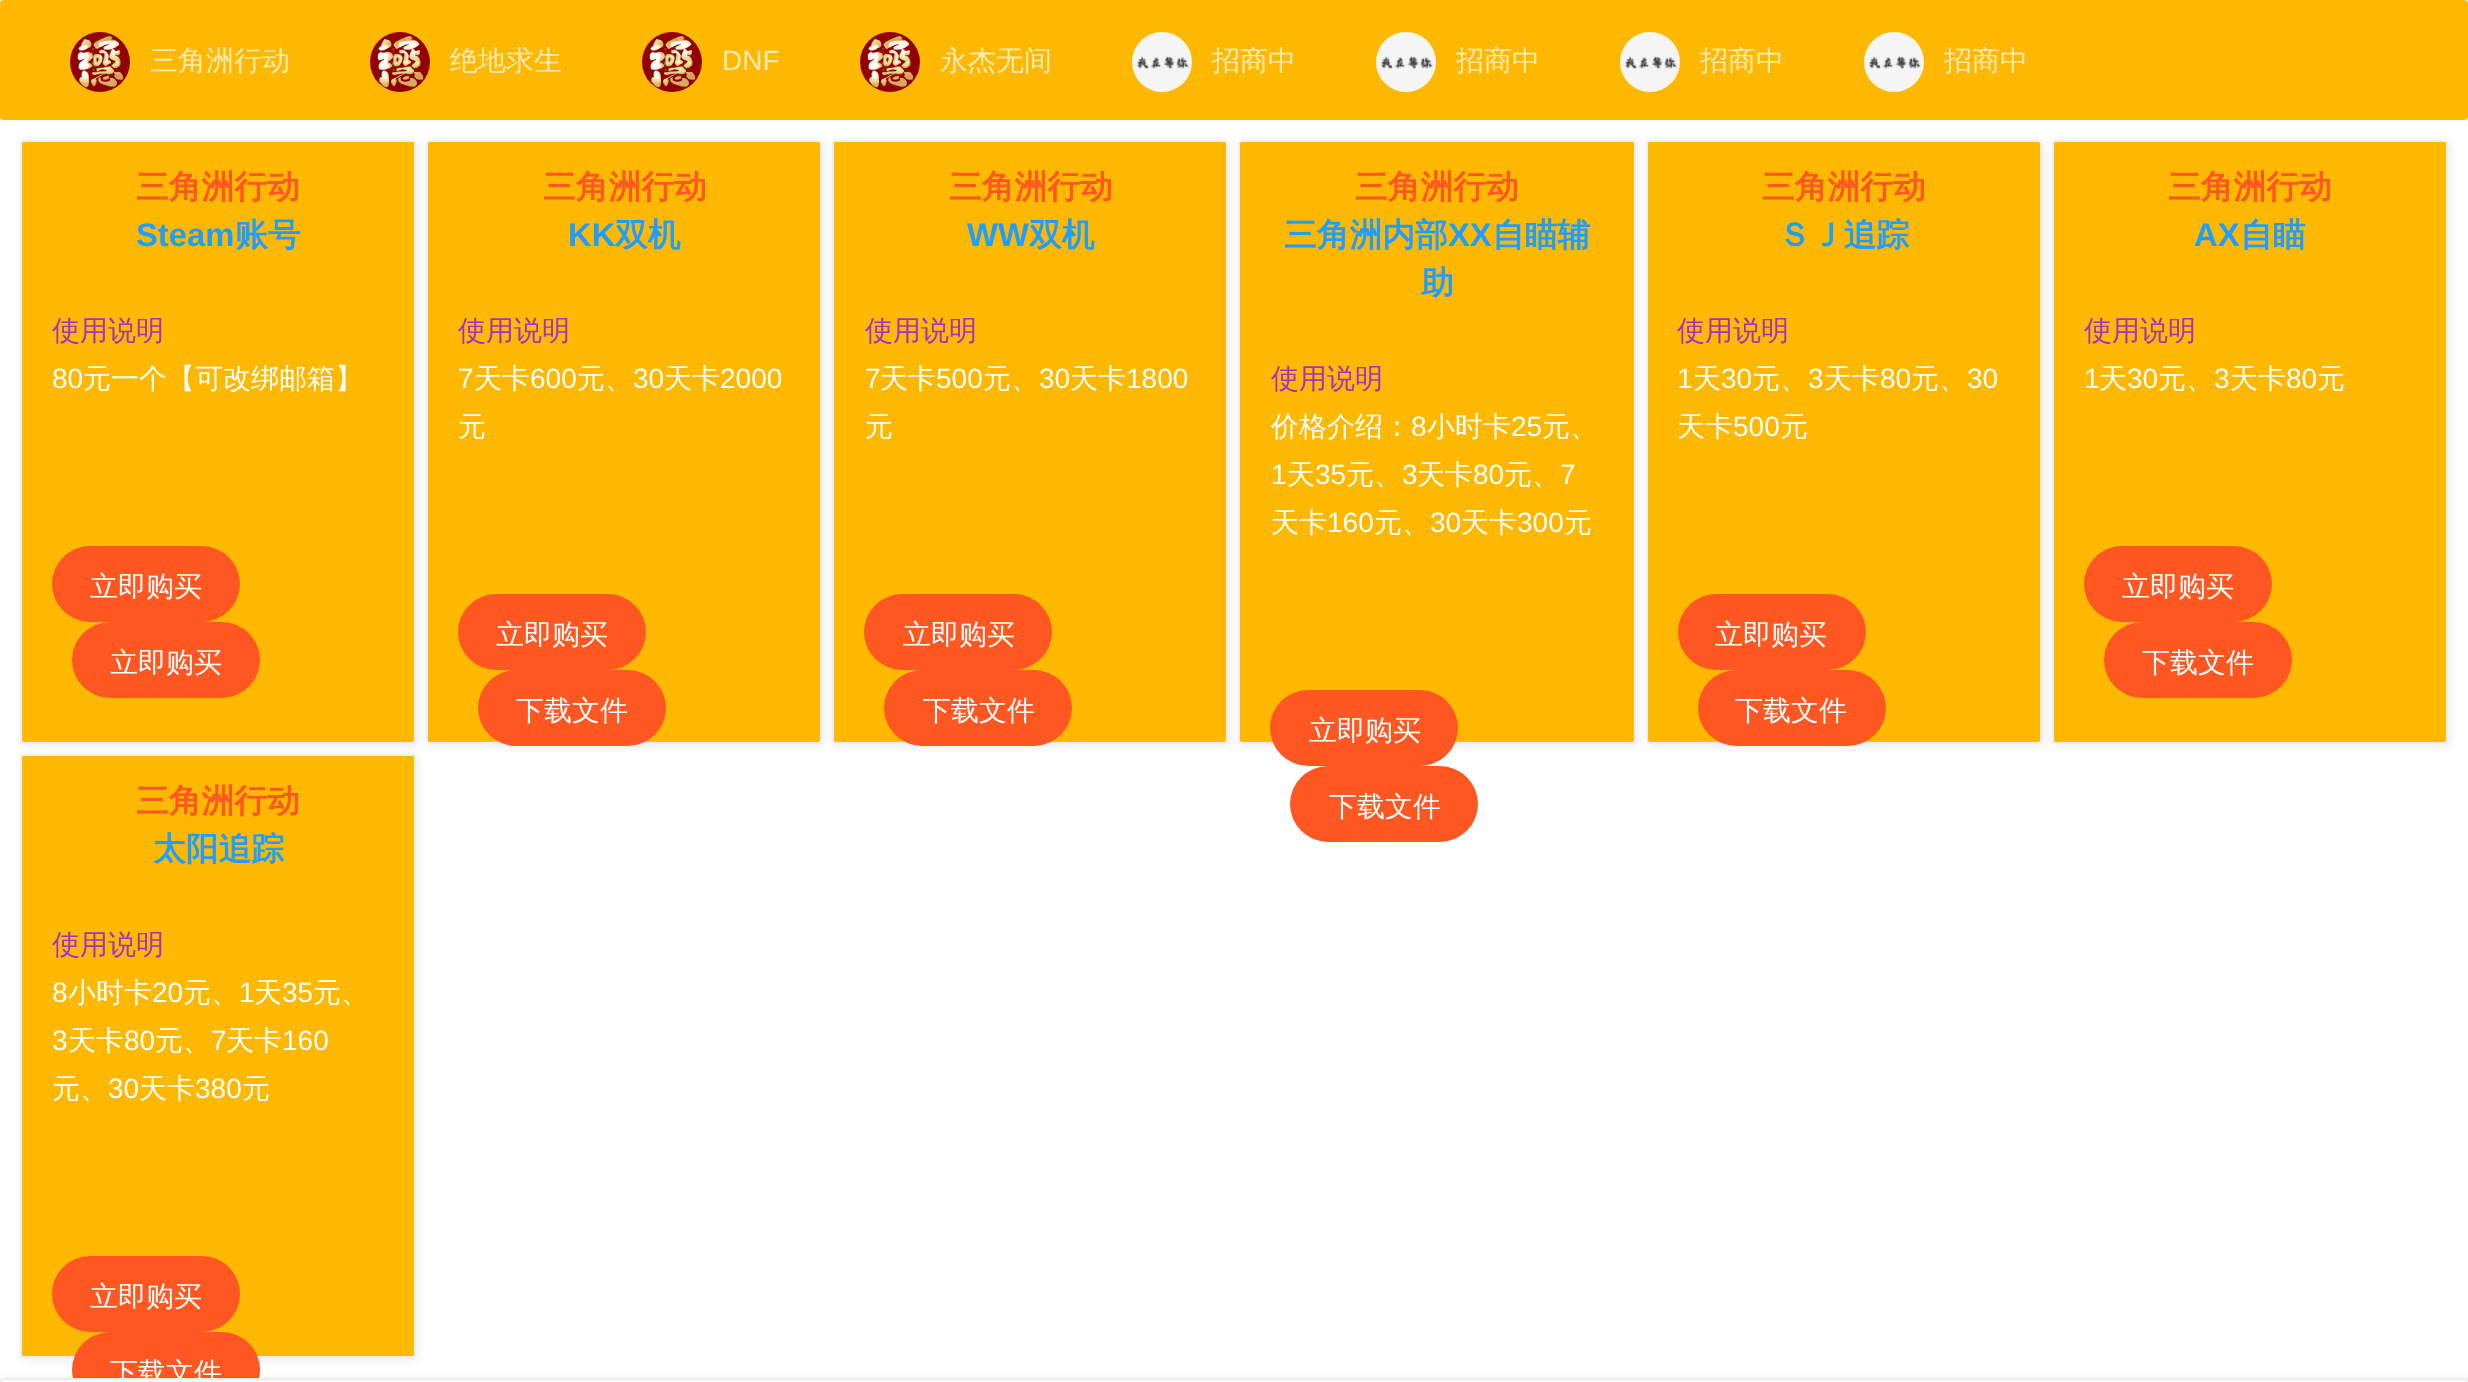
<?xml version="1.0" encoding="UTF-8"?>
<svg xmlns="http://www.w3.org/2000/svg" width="2468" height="1382">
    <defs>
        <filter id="blur1" x="-50%" y="-200%" width="200%" height="500%"><feGaussianBlur stdDeviation="4"/></filter>
    </defs>
    <rect width="100%" height="100%" fill="#FFFFFF"/>
    <rect x="0" y="0" width="2468" height="120" rx="4" fill="#FFB800"/>
    <image x="70" y="32" width="60" height="60" href="img_01.png"/>
    <text x="150" y="70" font-family="WenQuanYi Zen Hei" font-size="28" font-weight="500" fill="#FFEAB3">三角洲行动</text>
    <image x="370" y="32" width="60" height="60" href="img_02.png"/>
    <text x="450" y="70" font-family="WenQuanYi Zen Hei" font-size="28" font-weight="500" fill="#FFEAB3">绝地求生</text>
    <image x="642" y="32" width="60" height="60" href="img_03.png"/>
    <text x="722" y="70" font-family="Liberation Sans" font-size="28" fill="#FFEAB3">DNF</text>
    <image x="860" y="32" width="60" height="60" href="img_04.png"/>
    <text x="940" y="70" font-family="WenQuanYi Zen Hei" font-size="28" font-weight="500" fill="#FFEAB3">永杰无间</text>
    <image x="1132" y="32" width="60" height="60" href="img_05.png"/>
    <text x="1212" y="70" font-family="WenQuanYi Zen Hei" font-size="28" font-weight="500" fill="#FFEAB3">招商中</text>
    <image x="1376" y="32" width="60" height="60" href="img_05.png"/>
    <text x="1456" y="70" font-family="WenQuanYi Zen Hei" font-size="28" font-weight="500" fill="#FFEAB3">招商中</text>
    <image x="1620" y="32" width="60" height="60" href="img_05.png"/>
    <text x="1700" y="70" font-family="WenQuanYi Zen Hei" font-size="28" font-weight="500" fill="#FFEAB3">招商中</text>
    <image x="1864" y="32" width="60" height="60" href="img_05.png"/>
    <text x="1944" y="70" font-family="WenQuanYi Zen Hei" font-size="28" font-weight="500" fill="#FFEAB3">招商中</text>
    <rect x="22" y="142" width="396" height="604" rx="4" fill="#000000" fill-opacity="0.08" filter="url(#blur1)"/>
    <rect x="21" y="141" width="394" height="602" rx="3" fill="#FFB800" stroke="#EEEEEE" stroke-width="2"/>
    <text x="136" y="198" font-family="WenQuanYi Zen Hei" font-size="32.75" font-weight="700" fill="#FF5722">三角洲行动</text>
    <text x="136" y="246" font-family="Liberation Sans" font-size="32.75" font-weight="700" fill="#1E9FFF">Steam</text>
    <text x="235" y="246" font-family="WenQuanYi Zen Hei" font-size="32.75" font-weight="700" fill="#1E9FFF">账号</text>
    <text x="52" y="340" font-family="WenQuanYi Zen Hei" font-size="28" font-weight="500" fill="#A233C6">使用说明</text>
    <text x="52" y="388" font-family="Liberation Sans" font-size="28" fill="#FFFFFF">80</text>
    <text x="83" y="388" font-family="WenQuanYi Zen Hei" font-size="28" font-weight="500" fill="#FFFFFF">元一个【可改绑邮箱】</text>
    <rect x="52" y="546" width="188" height="76" rx="38" fill="#FF5722"/>
    <text x="90" y="596" font-family="WenQuanYi Zen Hei" font-size="28" font-weight="500" fill="#FFFFFF">立即购买</text>
    <rect x="72" y="622" width="188" height="76" rx="38" fill="#FF5722"/>
    <text x="110" y="672" font-family="WenQuanYi Zen Hei" font-size="28" font-weight="500" fill="#FFFFFF">立即购买</text>
    <rect x="428" y="142" width="396" height="604" rx="4" fill="#000000" fill-opacity="0.08" filter="url(#blur1)"/>
    <rect x="427" y="141" width="394" height="602" rx="3" fill="#FFB800" stroke="#EEEEEE" stroke-width="2"/>
    <text x="543" y="198" font-family="WenQuanYi Zen Hei" font-size="32.75" font-weight="700" fill="#FF5722">三角洲行动</text>
    <text x="568" y="246" font-family="Liberation Sans" font-size="32.75" font-weight="700" fill="#1E9FFF">KK</text>
    <text x="615" y="246" font-family="WenQuanYi Zen Hei" font-size="32.75" font-weight="700" fill="#1E9FFF">双机</text>
    <text x="458" y="340" font-family="WenQuanYi Zen Hei" font-size="28" font-weight="500" fill="#A233C6">使用说明</text>
    <text x="458" y="388" font-family="Liberation Sans" font-size="28" fill="#FFFFFF">7</text>
    <text x="474" y="388" font-family="WenQuanYi Zen Hei" font-size="28" font-weight="500" fill="#FFFFFF">天卡</text>
    <text x="530" y="388" font-family="Liberation Sans" font-size="28" fill="#FFFFFF">600</text>
    <text x="577" y="388" font-family="WenQuanYi Zen Hei" font-size="28" font-weight="500" fill="#FFFFFF">元、</text>
    <text x="633" y="388" font-family="Liberation Sans" font-size="28" fill="#FFFFFF">30</text>
    <text x="664" y="388" font-family="WenQuanYi Zen Hei" font-size="28" font-weight="500" fill="#FFFFFF">天卡</text>
    <text x="720" y="388" font-family="Liberation Sans" font-size="28" fill="#FFFFFF">2000</text>
    <text x="458" y="436" font-family="WenQuanYi Zen Hei" font-size="28" font-weight="500" fill="#FFFFFF">元</text>
    <rect x="458" y="594" width="188" height="76" rx="38" fill="#FF5722"/>
    <text x="496" y="644" font-family="WenQuanYi Zen Hei" font-size="28" font-weight="500" fill="#FFFFFF">立即购买</text>
    <rect x="478" y="670" width="188" height="76" rx="38" fill="#FF5722"/>
    <text x="516" y="720" font-family="WenQuanYi Zen Hei" font-size="28" font-weight="500" fill="#FFFFFF">下载文件</text>
    <rect x="834" y="142" width="396" height="604" rx="4" fill="#000000" fill-opacity="0.08" filter="url(#blur1)"/>
    <rect x="833" y="141" width="394" height="602" rx="3" fill="#FFB800" stroke="#EEEEEE" stroke-width="2"/>
    <text x="949" y="198" font-family="WenQuanYi Zen Hei" font-size="32.75" font-weight="700" fill="#FF5722">三角洲行动</text>
    <text x="967" y="246" font-family="Liberation Sans" font-size="32.75" font-weight="700" fill="#1E9FFF">WW</text>
    <text x="1029" y="246" font-family="WenQuanYi Zen Hei" font-size="32.75" font-weight="700" fill="#1E9FFF">双机</text>
    <text x="865" y="340" font-family="WenQuanYi Zen Hei" font-size="28" font-weight="500" fill="#A233C6">使用说明</text>
    <text x="865" y="388" font-family="Liberation Sans" font-size="28" fill="#FFFFFF">7</text>
    <text x="880" y="388" font-family="WenQuanYi Zen Hei" font-size="28" font-weight="500" fill="#FFFFFF">天卡</text>
    <text x="936" y="388" font-family="Liberation Sans" font-size="28" fill="#FFFFFF">500</text>
    <text x="983" y="388" font-family="WenQuanYi Zen Hei" font-size="28" font-weight="500" fill="#FFFFFF">元、</text>
    <text x="1039" y="388" font-family="Liberation Sans" font-size="28" fill="#FFFFFF">30</text>
    <text x="1070" y="388" font-family="WenQuanYi Zen Hei" font-size="28" font-weight="500" fill="#FFFFFF">天卡</text>
    <text x="1126" y="388" font-family="Liberation Sans" font-size="28" fill="#FFFFFF">1800</text>
    <text x="865" y="436" font-family="WenQuanYi Zen Hei" font-size="28" font-weight="500" fill="#FFFFFF">元</text>
    <rect x="864" y="594" width="188" height="76" rx="38" fill="#FF5722"/>
    <text x="903" y="644" font-family="WenQuanYi Zen Hei" font-size="28" font-weight="500" fill="#FFFFFF">立即购买</text>
    <rect x="884" y="670" width="188" height="76" rx="38" fill="#FF5722"/>
    <text x="923" y="720" font-family="WenQuanYi Zen Hei" font-size="28" font-weight="500" fill="#FFFFFF">下载文件</text>
    <rect x="1240" y="142" width="398" height="604" rx="4" fill="#000000" fill-opacity="0.08" filter="url(#blur1)"/>
    <rect x="1239" y="141" width="396" height="602" rx="3" fill="#FFB800" stroke="#EEEEEE" stroke-width="2"/>
    <text x="1355" y="198" font-family="WenQuanYi Zen Hei" font-size="32.75" font-weight="700" fill="#FF5722">三角洲行动</text>
    <text x="1284" y="246" font-family="WenQuanYi Zen Hei" font-size="32.75" font-weight="700" fill="#1E9FFF">三角洲内部</text>
    <text x="1448" y="246" font-family="Liberation Sans" font-size="32.75" font-weight="700" fill="#1E9FFF">XX</text>
    <text x="1492" y="246" font-family="WenQuanYi Zen Hei" font-size="32.75" font-weight="700" fill="#1E9FFF">自瞄辅</text>
    <text x="1421" y="294" font-family="WenQuanYi Zen Hei" font-size="32.75" font-weight="700" fill="#1E9FFF">助</text>
    <text x="1271" y="388" font-family="WenQuanYi Zen Hei" font-size="28" font-weight="500" fill="#A233C6">使用说明</text>
    <text x="1271" y="436" font-family="WenQuanYi Zen Hei" font-size="28" font-weight="500" fill="#FFFFFF">价格介绍：</text>
    <text x="1411" y="436" font-family="Liberation Sans" font-size="28" fill="#FFFFFF">8</text>
    <text x="1427" y="436" font-family="WenQuanYi Zen Hei" font-size="28" font-weight="500" fill="#FFFFFF">小时卡</text>
    <text x="1511" y="436" font-family="Liberation Sans" font-size="28" fill="#FFFFFF">25</text>
    <text x="1542" y="436" font-family="WenQuanYi Zen Hei" font-size="28" font-weight="500" fill="#FFFFFF">元、</text>
    <text x="1271" y="484" font-family="Liberation Sans" font-size="28" fill="#FFFFFF">1</text>
    <text x="1287" y="484" font-family="WenQuanYi Zen Hei" font-size="28" font-weight="500" fill="#FFFFFF">天</text>
    <text x="1315" y="484" font-family="Liberation Sans" font-size="28" fill="#FFFFFF">35</text>
    <text x="1346" y="484" font-family="WenQuanYi Zen Hei" font-size="28" font-weight="500" fill="#FFFFFF">元、</text>
    <text x="1402" y="484" font-family="Liberation Sans" font-size="28" fill="#FFFFFF">3</text>
    <text x="1417" y="484" font-family="WenQuanYi Zen Hei" font-size="28" font-weight="500" fill="#FFFFFF">天卡</text>
    <text x="1473" y="484" font-family="Liberation Sans" font-size="28" fill="#FFFFFF">80</text>
    <text x="1504" y="484" font-family="WenQuanYi Zen Hei" font-size="28" font-weight="500" fill="#FFFFFF">元、</text>
    <text x="1560" y="484" font-family="Liberation Sans" font-size="28" fill="#FFFFFF">7</text>
    <text x="1271" y="532" font-family="WenQuanYi Zen Hei" font-size="28" font-weight="500" fill="#FFFFFF">天卡</text>
    <text x="1327" y="532" font-family="Liberation Sans" font-size="28" fill="#FFFFFF">160</text>
    <text x="1374" y="532" font-family="WenQuanYi Zen Hei" font-size="28" font-weight="500" fill="#FFFFFF">元、</text>
    <text x="1430" y="532" font-family="Liberation Sans" font-size="28" fill="#FFFFFF">30</text>
    <text x="1461" y="532" font-family="WenQuanYi Zen Hei" font-size="28" font-weight="500" fill="#FFFFFF">天卡</text>
    <text x="1517" y="532" font-family="Liberation Sans" font-size="28" fill="#FFFFFF">300</text>
    <text x="1564" y="532" font-family="WenQuanYi Zen Hei" font-size="28" font-weight="500" fill="#FFFFFF">元</text>
    <rect x="1270" y="690" width="188" height="76" rx="38" fill="#FF5722"/>
    <text x="1309" y="740" font-family="WenQuanYi Zen Hei" font-size="28" font-weight="500" fill="#FFFFFF">立即购买</text>
    <rect x="1290" y="766" width="188" height="76" rx="38" fill="#FF5722"/>
    <text x="1329" y="816" font-family="WenQuanYi Zen Hei" font-size="28" font-weight="500" fill="#FFFFFF">下载文件</text>
    <rect x="1648" y="142" width="396" height="604" rx="4" fill="#000000" fill-opacity="0.08" filter="url(#blur1)"/>
    <rect x="1647" y="141" width="394" height="602" rx="3" fill="#FFB800" stroke="#EEEEEE" stroke-width="2"/>
    <text x="1762" y="198" font-family="WenQuanYi Zen Hei" font-size="32.75" font-weight="700" fill="#FF5722">三角洲行动</text>
    <text x="1778" y="246" font-family="WenQuanYi Zen Hei" font-size="32.75" font-weight="700" fill="#1E9FFF">ＳＪ追踪</text>
    <text x="1677" y="340" font-family="WenQuanYi Zen Hei" font-size="28" font-weight="500" fill="#A233C6">使用说明</text>
    <text x="1677" y="388" font-family="Liberation Sans" font-size="28" fill="#FFFFFF">1</text>
    <text x="1693" y="388" font-family="WenQuanYi Zen Hei" font-size="28" font-weight="500" fill="#FFFFFF">天</text>
    <text x="1721" y="388" font-family="Liberation Sans" font-size="28" fill="#FFFFFF">30</text>
    <text x="1752" y="388" font-family="WenQuanYi Zen Hei" font-size="28" font-weight="500" fill="#FFFFFF">元、</text>
    <text x="1808" y="388" font-family="Liberation Sans" font-size="28" fill="#FFFFFF">3</text>
    <text x="1824" y="388" font-family="WenQuanYi Zen Hei" font-size="28" font-weight="500" fill="#FFFFFF">天卡</text>
    <text x="1880" y="388" font-family="Liberation Sans" font-size="28" fill="#FFFFFF">80</text>
    <text x="1911" y="388" font-family="WenQuanYi Zen Hei" font-size="28" font-weight="500" fill="#FFFFFF">元、</text>
    <text x="1967" y="388" font-family="Liberation Sans" font-size="28" fill="#FFFFFF">30</text>
    <text x="1677" y="436" font-family="WenQuanYi Zen Hei" font-size="28" font-weight="500" fill="#FFFFFF">天卡</text>
    <text x="1733" y="436" font-family="Liberation Sans" font-size="28" fill="#FFFFFF">500</text>
    <text x="1780" y="436" font-family="WenQuanYi Zen Hei" font-size="28" font-weight="500" fill="#FFFFFF">元</text>
    <rect x="1678" y="594" width="188" height="76" rx="38" fill="#FF5722"/>
    <text x="1715" y="644" font-family="WenQuanYi Zen Hei" font-size="28" font-weight="500" fill="#FFFFFF">立即购买</text>
    <rect x="1698" y="670" width="188" height="76" rx="38" fill="#FF5722"/>
    <text x="1735" y="720" font-family="WenQuanYi Zen Hei" font-size="28" font-weight="500" fill="#FFFFFF">下载文件</text>
    <rect x="2054" y="142" width="396" height="604" rx="4" fill="#000000" fill-opacity="0.08" filter="url(#blur1)"/>
    <rect x="2053" y="141" width="394" height="602" rx="3" fill="#FFB800" stroke="#EEEEEE" stroke-width="2"/>
    <text x="2168" y="198" font-family="WenQuanYi Zen Hei" font-size="32.75" font-weight="700" fill="#FF5722">三角洲行动</text>
    <text x="2194" y="246" font-family="Liberation Sans" font-size="32.75" font-weight="700" fill="#1E9FFF">AX</text>
    <text x="2240" y="246" font-family="WenQuanYi Zen Hei" font-size="32.75" font-weight="700" fill="#1E9FFF">自瞄</text>
    <text x="2084" y="340" font-family="WenQuanYi Zen Hei" font-size="28" font-weight="500" fill="#A233C6">使用说明</text>
    <text x="2084" y="388" font-family="Liberation Sans" font-size="28" fill="#FFFFFF">1</text>
    <text x="2099" y="388" font-family="WenQuanYi Zen Hei" font-size="28" font-weight="500" fill="#FFFFFF">天</text>
    <text x="2127" y="388" font-family="Liberation Sans" font-size="28" fill="#FFFFFF">30</text>
    <text x="2158" y="388" font-family="WenQuanYi Zen Hei" font-size="28" font-weight="500" fill="#FFFFFF">元、</text>
    <text x="2214" y="388" font-family="Liberation Sans" font-size="28" fill="#FFFFFF">3</text>
    <text x="2230" y="388" font-family="WenQuanYi Zen Hei" font-size="28" font-weight="500" fill="#FFFFFF">天卡</text>
    <text x="2286" y="388" font-family="Liberation Sans" font-size="28" fill="#FFFFFF">80</text>
    <text x="2317" y="388" font-family="WenQuanYi Zen Hei" font-size="28" font-weight="500" fill="#FFFFFF">元</text>
    <rect x="2084" y="546" width="188" height="76" rx="38" fill="#FF5722"/>
    <text x="2122" y="596" font-family="WenQuanYi Zen Hei" font-size="28" font-weight="500" fill="#FFFFFF">立即购买</text>
    <rect x="2104" y="622" width="188" height="76" rx="38" fill="#FF5722"/>
    <text x="2142" y="672" font-family="WenQuanYi Zen Hei" font-size="28" font-weight="500" fill="#FFFFFF">下载文件</text>
    <rect x="22" y="756" width="396" height="604" rx="4" fill="#000000" fill-opacity="0.08" filter="url(#blur1)"/>
    <rect x="21" y="755" width="394" height="602" rx="3" fill="#FFB800" stroke="#EEEEEE" stroke-width="2"/>
    <text x="136" y="812" font-family="WenQuanYi Zen Hei" font-size="32.75" font-weight="700" fill="#FF5722">三角洲行动</text>
    <text x="153" y="860" font-family="WenQuanYi Zen Hei" font-size="32.75" font-weight="700" fill="#1E9FFF">太阳追踪</text>
    <text x="52" y="954" font-family="WenQuanYi Zen Hei" font-size="28" font-weight="500" fill="#A233C6">使用说明</text>
    <text x="52" y="1002" font-family="Liberation Sans" font-size="28" fill="#FFFFFF">8</text>
    <text x="68" y="1002" font-family="WenQuanYi Zen Hei" font-size="28" font-weight="500" fill="#FFFFFF">小时卡</text>
    <text x="152" y="1002" font-family="Liberation Sans" font-size="28" fill="#FFFFFF">20</text>
    <text x="183" y="1002" font-family="WenQuanYi Zen Hei" font-size="28" font-weight="500" fill="#FFFFFF">元、</text>
    <text x="239" y="1002" font-family="Liberation Sans" font-size="28" fill="#FFFFFF">1</text>
    <text x="254" y="1002" font-family="WenQuanYi Zen Hei" font-size="28" font-weight="500" fill="#FFFFFF">天</text>
    <text x="282" y="1002" font-family="Liberation Sans" font-size="28" fill="#FFFFFF">35</text>
    <text x="313" y="1002" font-family="WenQuanYi Zen Hei" font-size="28" font-weight="500" fill="#FFFFFF">元、</text>
    <text x="52" y="1050" font-family="Liberation Sans" font-size="28" fill="#FFFFFF">3</text>
    <text x="68" y="1050" font-family="WenQuanYi Zen Hei" font-size="28" font-weight="500" fill="#FFFFFF">天卡</text>
    <text x="124" y="1050" font-family="Liberation Sans" font-size="28" fill="#FFFFFF">80</text>
    <text x="155" y="1050" font-family="WenQuanYi Zen Hei" font-size="28" font-weight="500" fill="#FFFFFF">元、</text>
    <text x="211" y="1050" font-family="Liberation Sans" font-size="28" fill="#FFFFFF">7</text>
    <text x="226" y="1050" font-family="WenQuanYi Zen Hei" font-size="28" font-weight="500" fill="#FFFFFF">天卡</text>
    <text x="282" y="1050" font-family="Liberation Sans" font-size="28" fill="#FFFFFF">160</text>
    <text x="52" y="1098" font-family="WenQuanYi Zen Hei" font-size="28" font-weight="500" fill="#FFFFFF">元、</text>
    <text x="108" y="1098" font-family="Liberation Sans" font-size="28" fill="#FFFFFF">30</text>
    <text x="139" y="1098" font-family="WenQuanYi Zen Hei" font-size="28" font-weight="500" fill="#FFFFFF">天卡</text>
    <text x="195" y="1098" font-family="Liberation Sans" font-size="28" fill="#FFFFFF">380</text>
    <text x="242" y="1098" font-family="WenQuanYi Zen Hei" font-size="28" font-weight="500" fill="#FFFFFF">元</text>
    <rect x="52" y="1256" width="188" height="76" rx="38" fill="#FF5722"/>
    <text x="90" y="1306" font-family="WenQuanYi Zen Hei" font-size="28" font-weight="500" fill="#FFFFFF">立即购买</text>
    <rect x="72" y="1332" width="188" height="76" rx="38" fill="#FF5722"/>
    <text x="110" y="1382" font-family="WenQuanYi Zen Hei" font-size="28" font-weight="500" fill="#FFFFFF">下载文件</text>
    <rect x="2" y="1380" width="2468" height="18" rx="4" fill="#000000" fill-opacity="0.08" filter="url(#blur1)"/>
    <rect x="1" y="1379" width="2466" height="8" rx="3" fill="#FAFAFA" stroke="#EEEEEE" stroke-width="2"/>
</svg>
